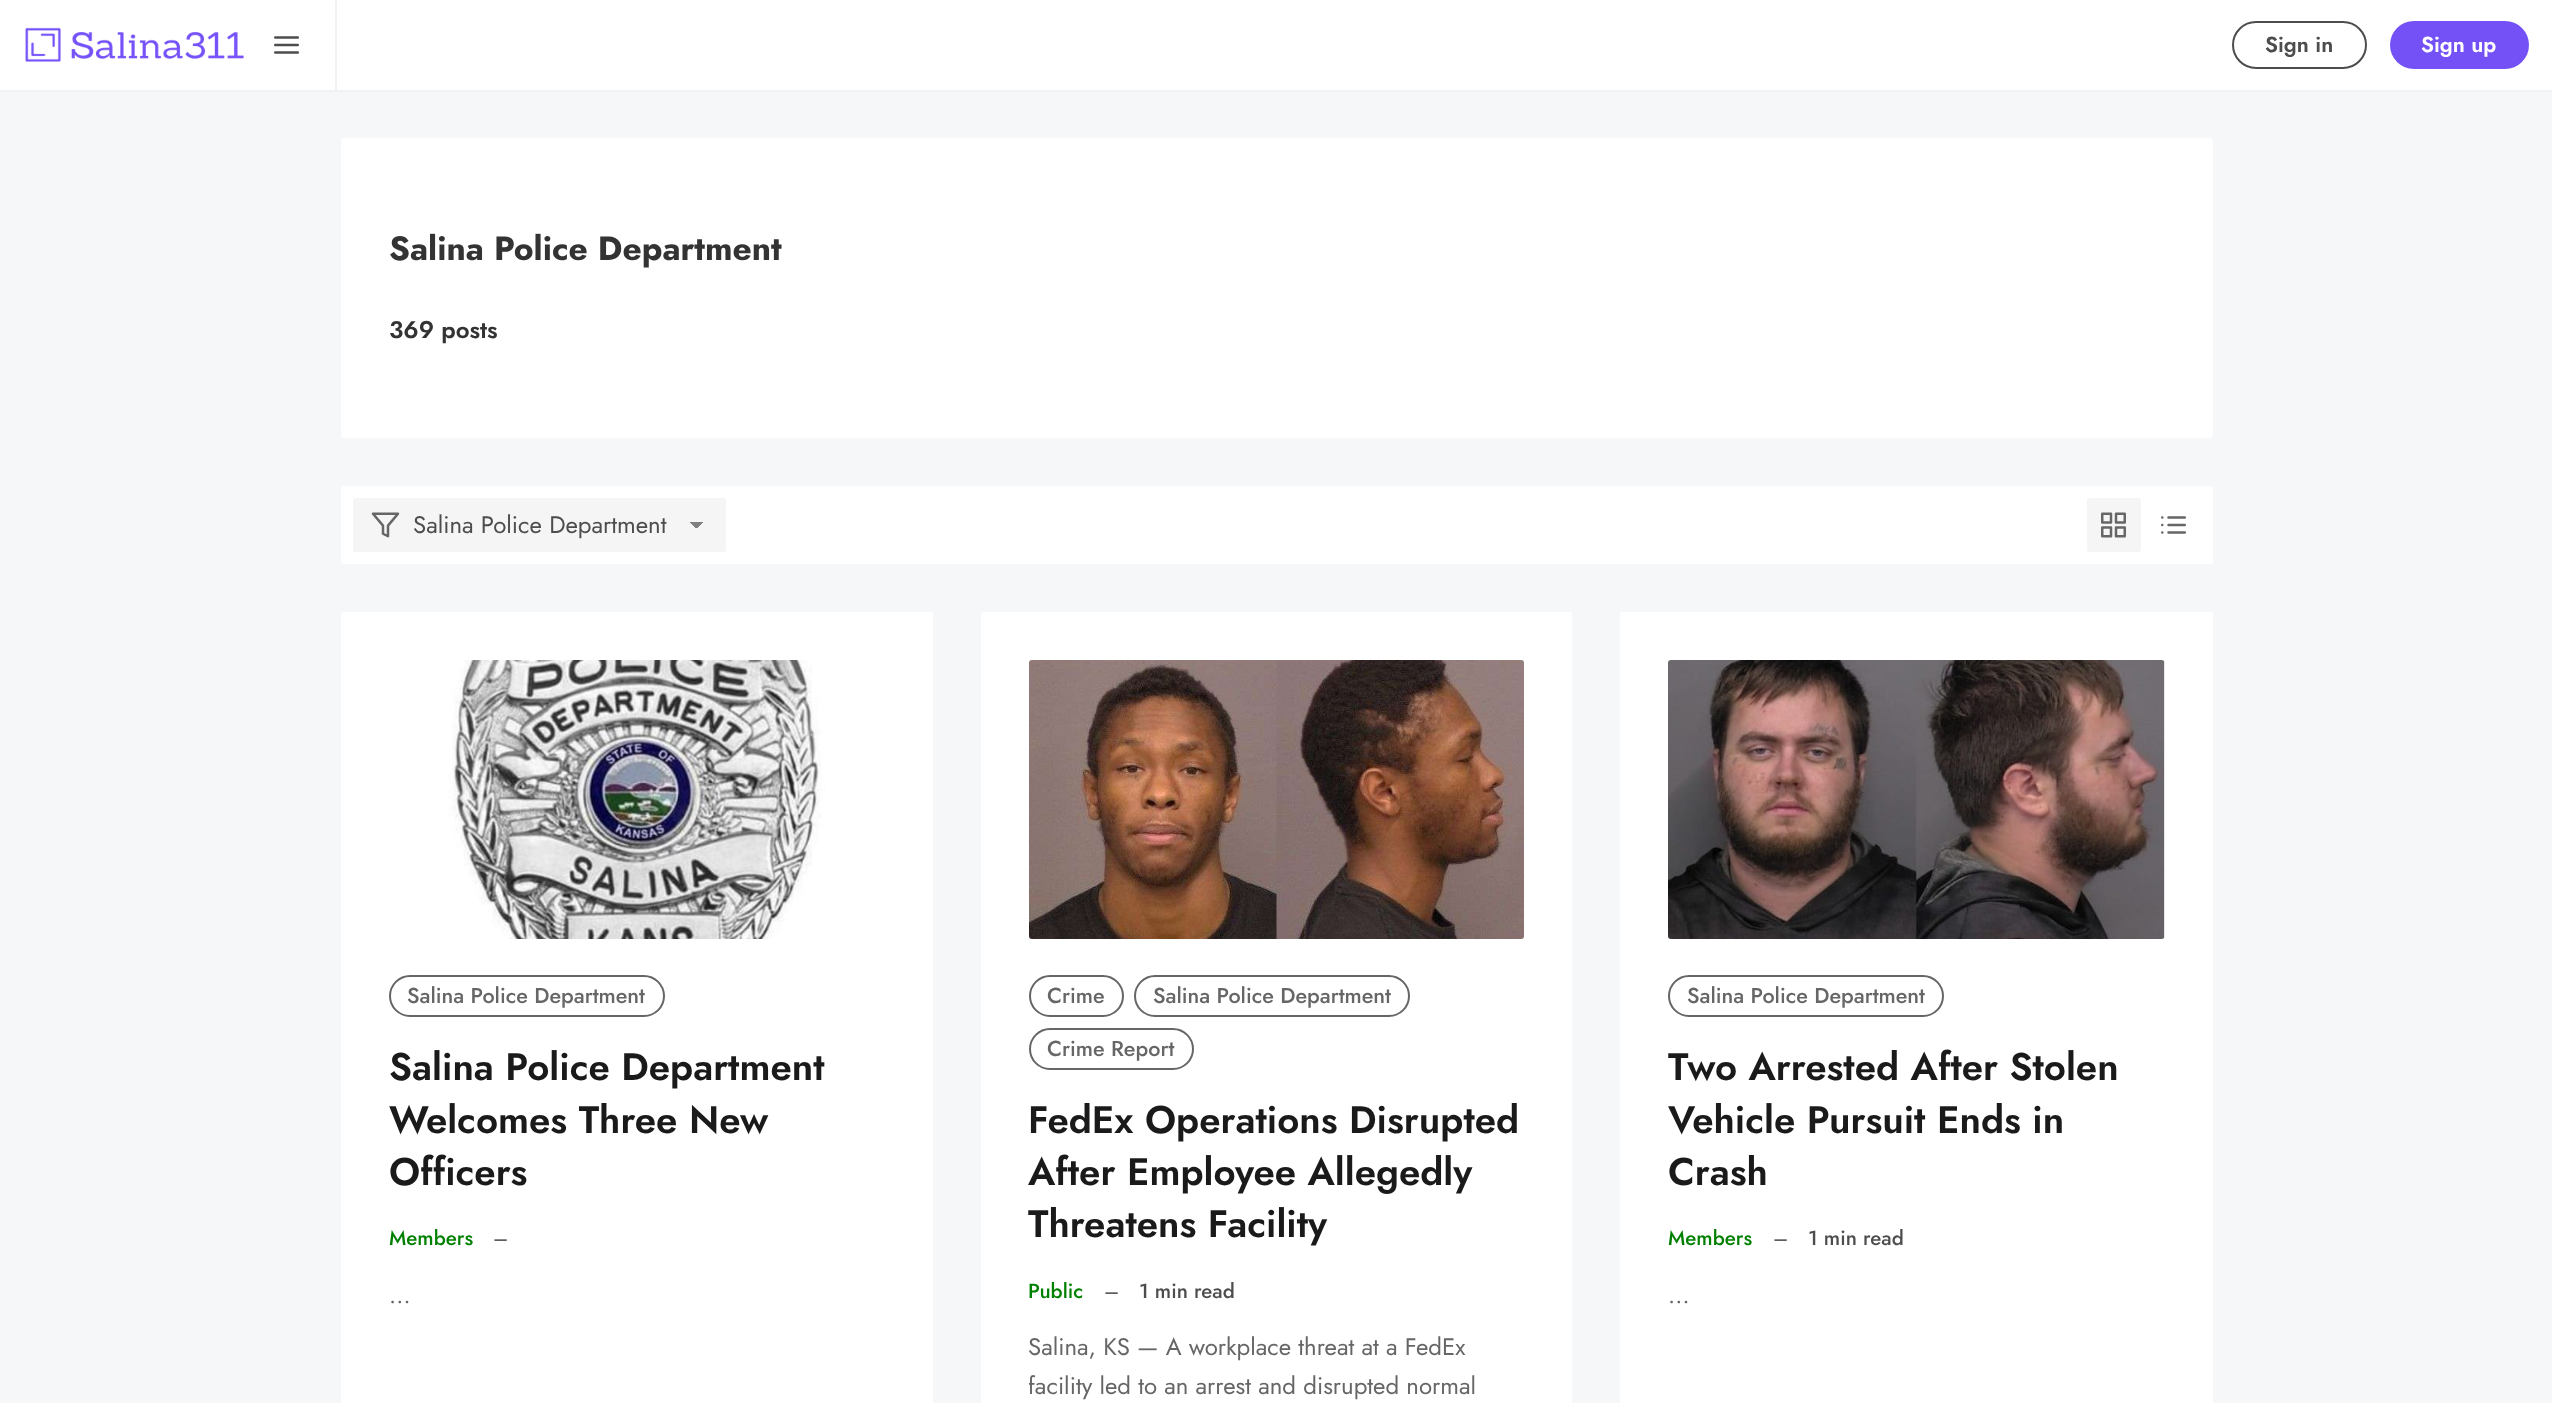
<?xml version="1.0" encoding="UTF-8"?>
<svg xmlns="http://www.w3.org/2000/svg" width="2552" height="1403">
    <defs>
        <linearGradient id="g1" gradientUnits="userSpaceOnUse" x1="696" y1="521" x2="704" y2="529"><stop offset="0.5" stop-color="#808080"/><stop offset="0.5" stop-color="#F5F5F5"/></linearGradient>
        <linearGradient id="g2" gradientUnits="userSpaceOnUse" x1="689" y1="529" x2="696" y2="521"><stop offset="0.5" stop-color="#F5F5F5"/><stop offset="0.5" stop-color="#808080"/></linearGradient>
    </defs>
    <rect width="100%" height="100%" fill="#F6F7F9"/>
    <rect x="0" y="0" width="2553" height="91" fill="none" stroke="#F2F2F2" stroke-width="2"/>
    <rect x="0" y="0" width="2552" height="90" fill="#FFFFFF"/>
    <rect x="335" y="0" width="2" height="90" fill="#F2F2F2"/>
    <image x="25" y="27" width="219" height="35" href="img_01.png"/>
    <image x="274" y="36" width="26" height="18" href="img_02.png"/>
    <rect x="2233" y="22" width="133" height="46" rx="23" fill="none" stroke="#4D4D4D" stroke-width="2"/>
    <text x="2265" y="52" font-family="Jost" font-size="21.6" font-weight="600" fill="#4D4D4D">Sign in</text>
    <rect x="2390" y="21" width="139" height="48" rx="24" fill="#7451F7"/>
    <text x="2421" y="52" font-family="Jost" font-size="21.6" font-weight="600" fill="#FFFFFF">Sign up</text>
    <rect x="341" y="138" width="1872" height="300" rx="3" fill="#FFFFFF"/>
    <text x="389" y="260" font-family="Jost" font-size="33.6" font-weight="700" fill="#333333">Salina Police Department</text>
    <text x="389" y="338" font-family="Jost" font-size="24" font-weight="600" fill="#333333">369 posts</text>
    <rect x="341" y="486" width="1872" height="78" rx="3" fill="#FFFFFF"/>
    <rect x="353" y="498" width="373" height="54" rx="3" fill="#F5F5F5"/>
    <image x="371" y="512" width="29" height="26" href="img_03.png"/>
    <rect x="696" y="522" width="8" height="6" fill="url(#g1)"/>
    <rect x="690" y="522" width="6" height="8" fill="url(#g2)"/>
    <text x="413" y="533" font-family="Jost" font-size="24" fill="#4D4D4D">Salina Police Department</text>
    <rect x="2087" y="498" width="54" height="54" rx="3" fill="#F5F5F5"/>
    <image x="2101" y="512" width="25" height="26" href="img_04.png"/>
    <image x="2161" y="516" width="26" height="18" href="img_05.png"/>
    <rect x="341" y="612" width="592" height="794" rx="3" fill="#FFFFFF"/>
    <rect x="389" y="660" width="496" height="279" fill="#FAFAFA"/>
    <image x="389" y="660" width="496" height="279" href="img_06.png"/>
    <rect x="390" y="976" width="274" height="40" rx="20" fill="none" stroke="#666666" stroke-width="2"/>
    <text x="407" y="1003" font-family="Jost" font-size="21.6" font-weight="500" fill="#666666">Salina Police Department</text>
    <text font-family="Jost" font-size="38.4" font-weight="600" fill="#1A1A1A">
        <tspan x="389" y="1080">Salina Police Department</tspan>
        <tspan x="389" y="1133">Welcomes Three New</tspan>
        <tspan x="389" y="1185">Officers</tspan>
    </text>
    <text x="389" y="1245" font-family="Jost" font-size="20.5" font-weight="500" fill="#008000">Members</text>
    <text x="493" y="1245" font-family="Jost" font-size="20.5" fill="#4D4D4D">–</text>
    <text x="389" y="1303" font-family="Jost" font-size="24" fill="#666666">…</text>
    <rect x="981" y="612" width="591" height="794" rx="3" fill="#FFFFFF"/>
    <rect x="1029" y="660" width="495" height="279" fill="#FAFAFA"/>
    <image x="1029" y="660" width="495" height="279" href="img_07.png"/>
    <rect x="1030" y="976" width="93" height="40" rx="20" fill="none" stroke="#666666" stroke-width="2"/>
    <text x="1047" y="1003" font-family="Jost" font-size="21.6" font-weight="500" fill="#666666">Crime</text>
    <rect x="1135" y="976" width="274" height="40" rx="20" fill="none" stroke="#666666" stroke-width="2"/>
    <text x="1153" y="1003" font-family="Jost" font-size="21.6" font-weight="500" fill="#666666">Salina Police Department</text>
    <rect x="1030" y="1029" width="163" height="40" rx="20" fill="none" stroke="#666666" stroke-width="2"/>
    <text x="1047" y="1056" font-family="Jost" font-size="21.6" font-weight="500" fill="#666666">Crime Report</text>
    <text font-family="Jost" font-size="38.4" font-weight="600" fill="#1A1A1A">
        <tspan x="1028" y="1133">FedEx Operations Disrupted</tspan>
        <tspan x="1028" y="1185">After Employee Allegedly</tspan>
        <tspan x="1028" y="1237">Threatens Facility</tspan>
    </text>
    <text x="1028" y="1298" font-family="Jost" font-size="20.5" font-weight="500" fill="#008000">Public</text>
    <text x="1104" y="1298" font-family="Jost" font-size="20.5" fill="#4D4D4D">–</text>
    <text x="1139" y="1298" font-family="Jost" font-size="20.5" font-weight="500" fill="#4D4D4D">1 min read</text>
    <text font-family="Jost" font-size="24" fill="#666666">
        <tspan x="1028" y="1355">Salina, KS — A workplace threat at a FedEx</tspan>
        <tspan x="1028" y="1394">facility led to an arrest and disrupted normal</tspan>
    </text>
    <rect x="1620" y="612" width="593" height="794" rx="3" fill="#FFFFFF"/>
    <rect x="1668" y="660" width="497" height="279" fill="#FAFAFA"/>
    <image x="1668" y="660" width="497" height="279" href="img_08.png"/>
    <rect x="1669" y="976" width="274" height="40" rx="20" fill="none" stroke="#666666" stroke-width="2"/>
    <text x="1687" y="1003" font-family="Jost" font-size="21.6" font-weight="500" fill="#666666">Salina Police Department</text>
    <text font-family="Jost" font-size="38.4" font-weight="600" fill="#1A1A1A">
        <tspan x="1668" y="1080">Two Arrested After Stolen</tspan>
        <tspan x="1668" y="1133">Vehicle Pursuit Ends in</tspan>
        <tspan x="1668" y="1185">Crash</tspan>
    </text>
    <text x="1668" y="1245" font-family="Jost" font-size="20.5" font-weight="500" fill="#008000">Members</text>
    <text x="1773" y="1245" font-family="Jost" font-size="20.5" fill="#4D4D4D">–</text>
    <text x="1808" y="1245" font-family="Jost" font-size="20.5" font-weight="500" fill="#4D4D4D">1 min read</text>
    <text x="1668" y="1303" font-family="Jost" font-size="24" fill="#666666">…</text>
</svg>
